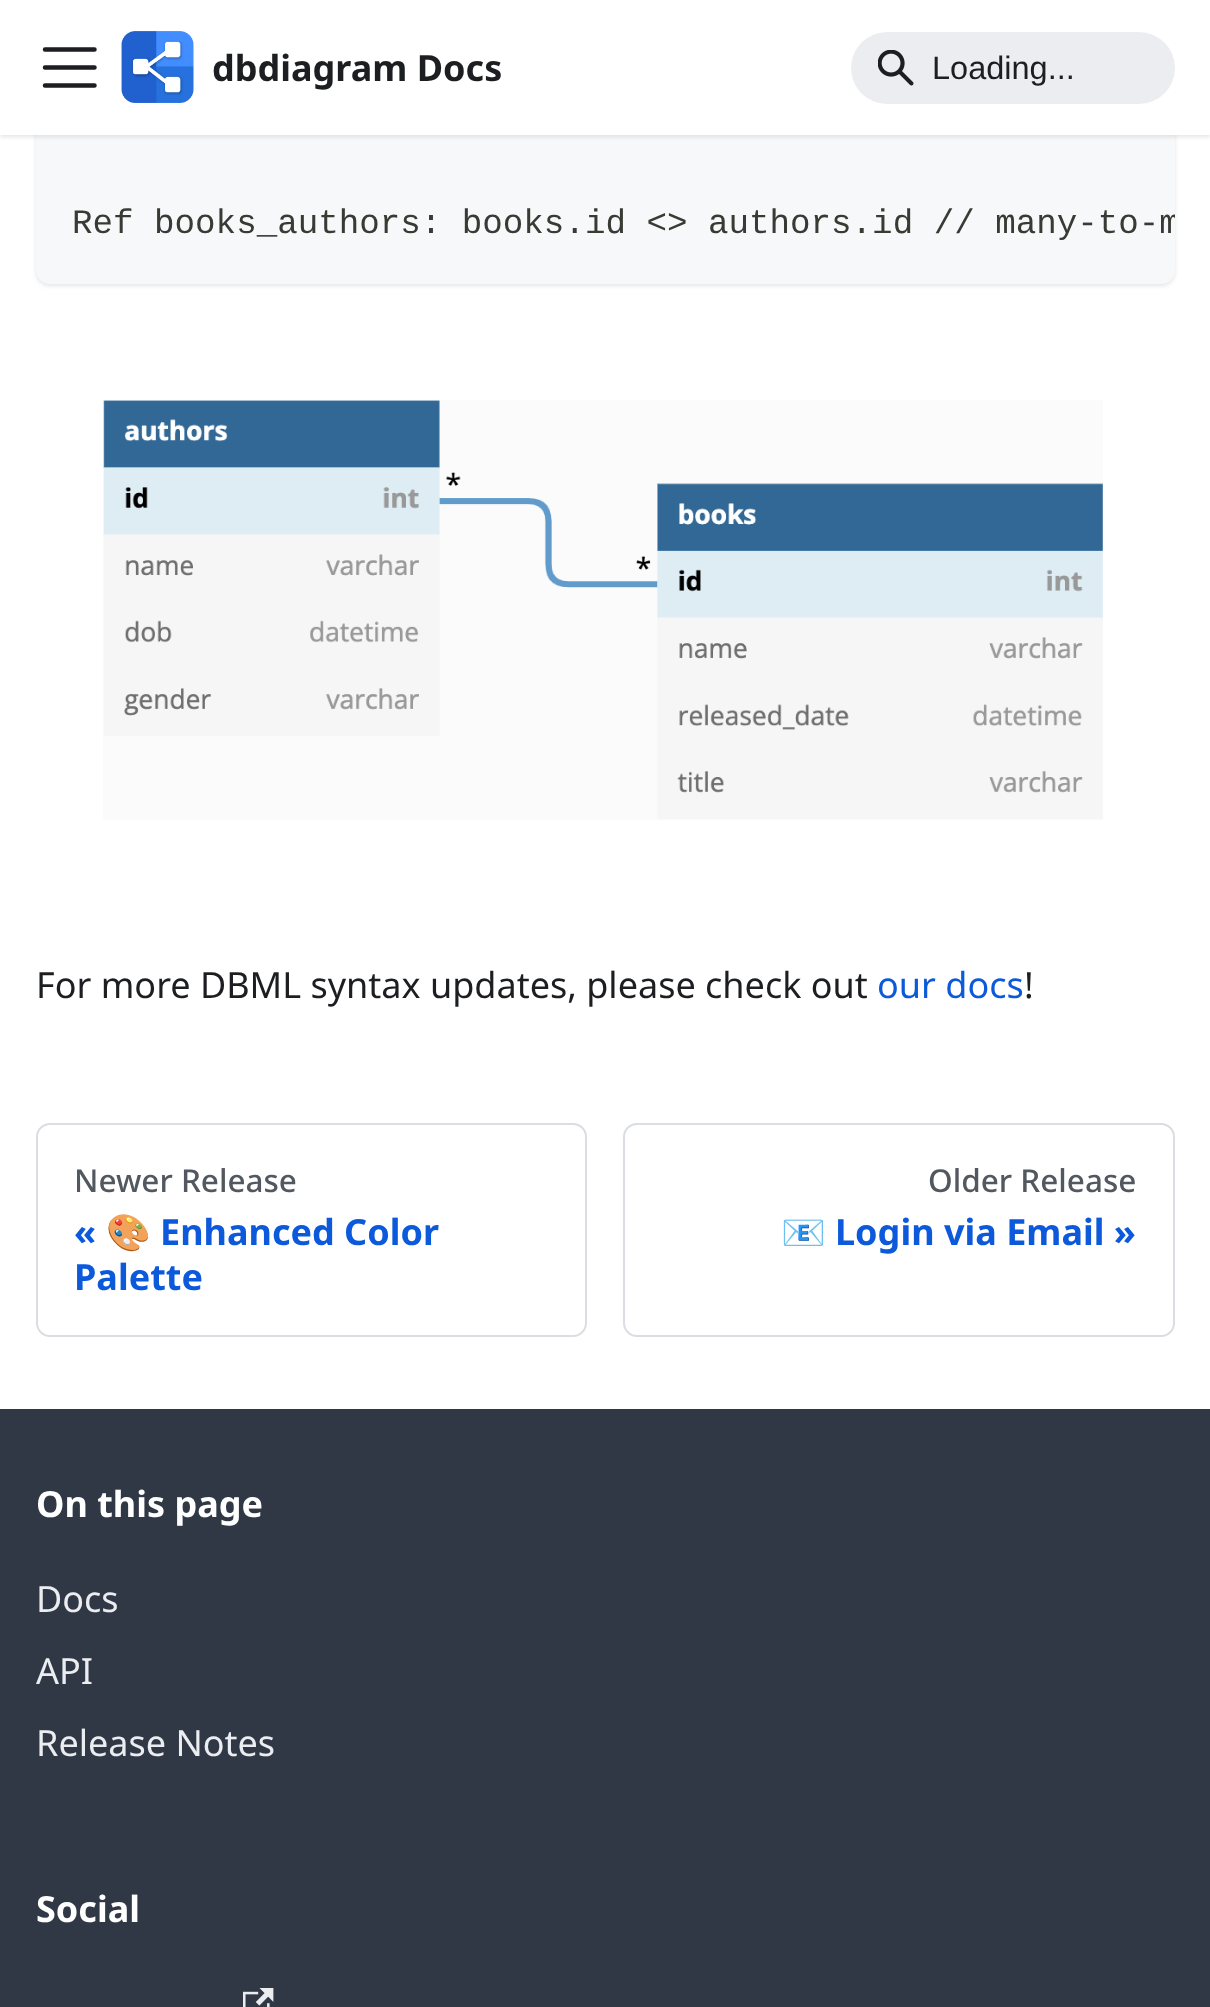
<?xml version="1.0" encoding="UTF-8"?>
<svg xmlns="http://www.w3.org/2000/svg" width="1210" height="2007">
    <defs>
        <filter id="blur1" x="-50%" y="-200%" width="200%" height="500%"><feGaussianBlur stdDeviation="2"/></filter>
        <clipPath id="clip1"><rect x="36" y="-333" width="1139" height="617" rx="14"/></clipPath>
    </defs>
    <rect width="100%" height="100%" fill="#FFFFFF"/>
    <rect x="36" y="-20" width="1139" height="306" rx="14" fill="#000000" fill-opacity="0.1" filter="url(#blur1)"/>
    <rect x="36" y="-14" width="1139" height="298" rx="14" fill="#F6F8FA"/>
    <rect x="0" y="2" width="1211" height="135" fill="#000000" fill-opacity="0.1" filter="url(#blur1)"/>
    <rect x="0" y="0" width="1210" height="135" fill="#FFFFFF"/>
    <path d="M 45 49.5 H 94.5 M 45 67.5 H 94.5 M 45 85.5 H 94.5" fill="none" stroke="#1C1E21" stroke-width="4.5" stroke-linecap="round"/>
    <image x="121" y="31" width="73" height="72" href="img_01.png"/>
    <text x="212" y="81" font-family="Noto Sans" font-size="36" font-weight="700" fill="#1C1E21">dbdiagram Docs</text>
    <rect x="851" y="32" width="324" height="72" rx="36" fill="#EBEDF0"/>
    <image x="878" y="50" width="36" height="36" href="img_02.png"/>
    <text x="932" y="79" font-family="Liberation Sans" font-size="32.5" fill="#1C1E21">Loading...</text>
    <g clip-path="url(#clip1)">
        <text x="72" y="233" font-family="Liberation Mono" font-size="34.2" fill="#393A34">Ref books_authors: books.id &lt;&gt; authors.id // many-to-m</text>
    </g>
    <image x="103" y="400" width="1000" height="420" href="img_03.png"/>
    <text x="36" y="998" font-family="Noto Sans" font-size="36" fill="#1C1E21">For more DBML syntax updates, please check out</text>
    <text x="877" y="998" font-family="Noto Sans" font-size="36" fill="#0C5ADB">our docs</text>
    <text x="1024" y="998" font-family="Noto Sans" font-size="36" fill="#1C1E21">!</text>
    <rect x="37" y="1124" width="549" height="212" rx="13" fill="none" stroke="#DADDE1" stroke-width="2"/>
    <text x="74" y="1192" font-family="Noto Sans" font-size="31.5" font-weight="500" fill="#525860">Newer Release</text>
    <text x="74" y="1245" font-family="Noto Sans" font-size="36" font-weight="700" fill="#0C5ADB">«</text>
    <text x="106" y="1245" font-family="Noto Color Emoji" font-size="36" font-weight="700" fill="#0C5ADB">🎨</text>
    <text x="160" y="1245" font-family="Noto Sans" font-size="36" font-weight="700" fill="#0C5ADB">Enhanced Color</text>
    <text x="74" y="1290" font-family="Noto Sans" font-size="36" font-weight="700" fill="#0C5ADB">Palette</text>
    <rect x="624" y="1124" width="550" height="212" rx="13" fill="none" stroke="#DADDE1" stroke-width="2"/>
    <text x="928" y="1192" font-family="Noto Sans" font-size="31.5" font-weight="500" fill="#525860">Older Release</text>
    <text x="781" y="1245" font-family="Noto Color Emoji" font-size="36" font-weight="700" fill="#0C5ADB">📧</text>
    <text x="835" y="1245" font-family="Noto Sans" font-size="36" font-weight="700" fill="#0C5ADB">Login via Email »</text>
    <rect x="0" y="1409" width="1210" height="598" fill="#303846"/>
    <text x="36" y="1517" font-family="Noto Sans" font-size="36" font-weight="700" fill="#FFFFFF">On this page</text>
    <text x="36" y="1612" font-family="Noto Sans" font-size="36" fill="#EBEDF0">Docs</text>
    <text x="36" y="1684" font-family="Noto Sans" font-size="36" fill="#EBEDF0">API</text>
    <text x="36" y="1756" font-family="Noto Sans" font-size="36" fill="#EBEDF0">Release Notes</text>
    <text x="36" y="1922" font-family="Noto Sans" font-size="36" font-weight="700" fill="#FFFFFF">Social</text>
    <image x="243" y="1988" width="31" height="19" href="img_04.png"/>
</svg>
